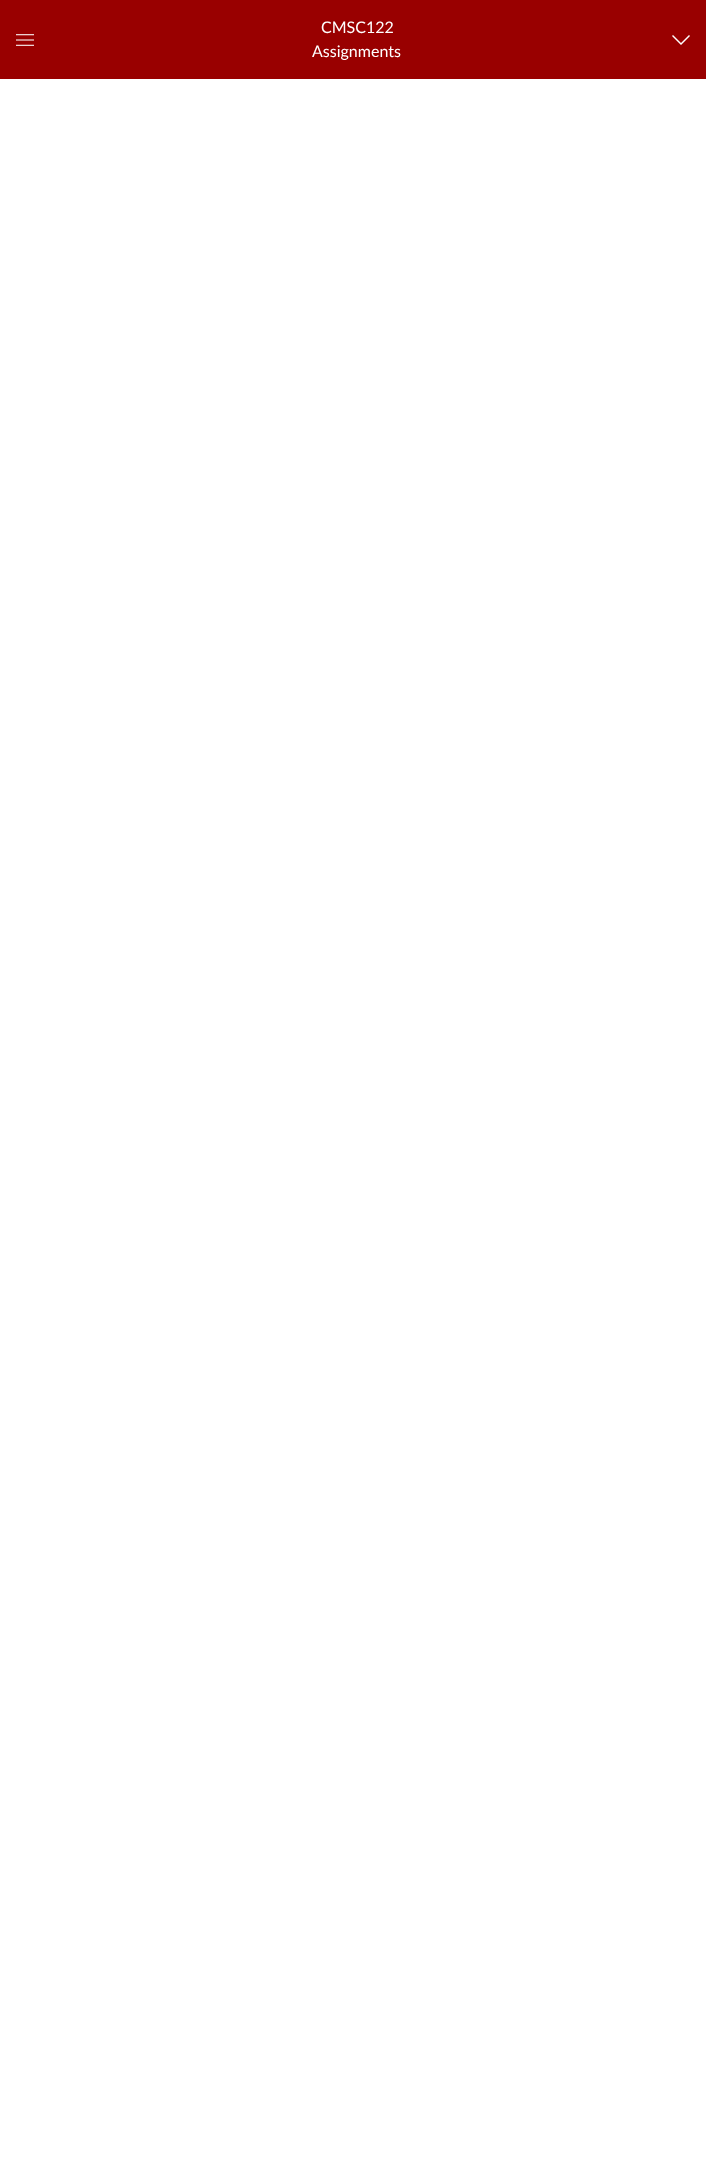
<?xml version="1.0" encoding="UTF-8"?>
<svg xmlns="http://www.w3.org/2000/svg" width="706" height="2166">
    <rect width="100%" height="100%" fill="#FFFFFF"/>
    <rect x="0" y="0" width="706" height="79" fill="#990000"/>
    <image x="16" y="34" width="18" height="12" href="img_01.png"/>
    <text x="321" y="33" font-family="Lato" font-size="16" fill="#FFFFFF">CMSC122</text>
    <text x="312" y="57" font-family="Lato" font-size="16" fill="#FFFFFF">Assignments</text>
    <path d="M 672 36 L 673 35 L 681 43 L 689 35 L 690 36 L 681 45 Z" fill="#FFFFFF"/>
</svg>
